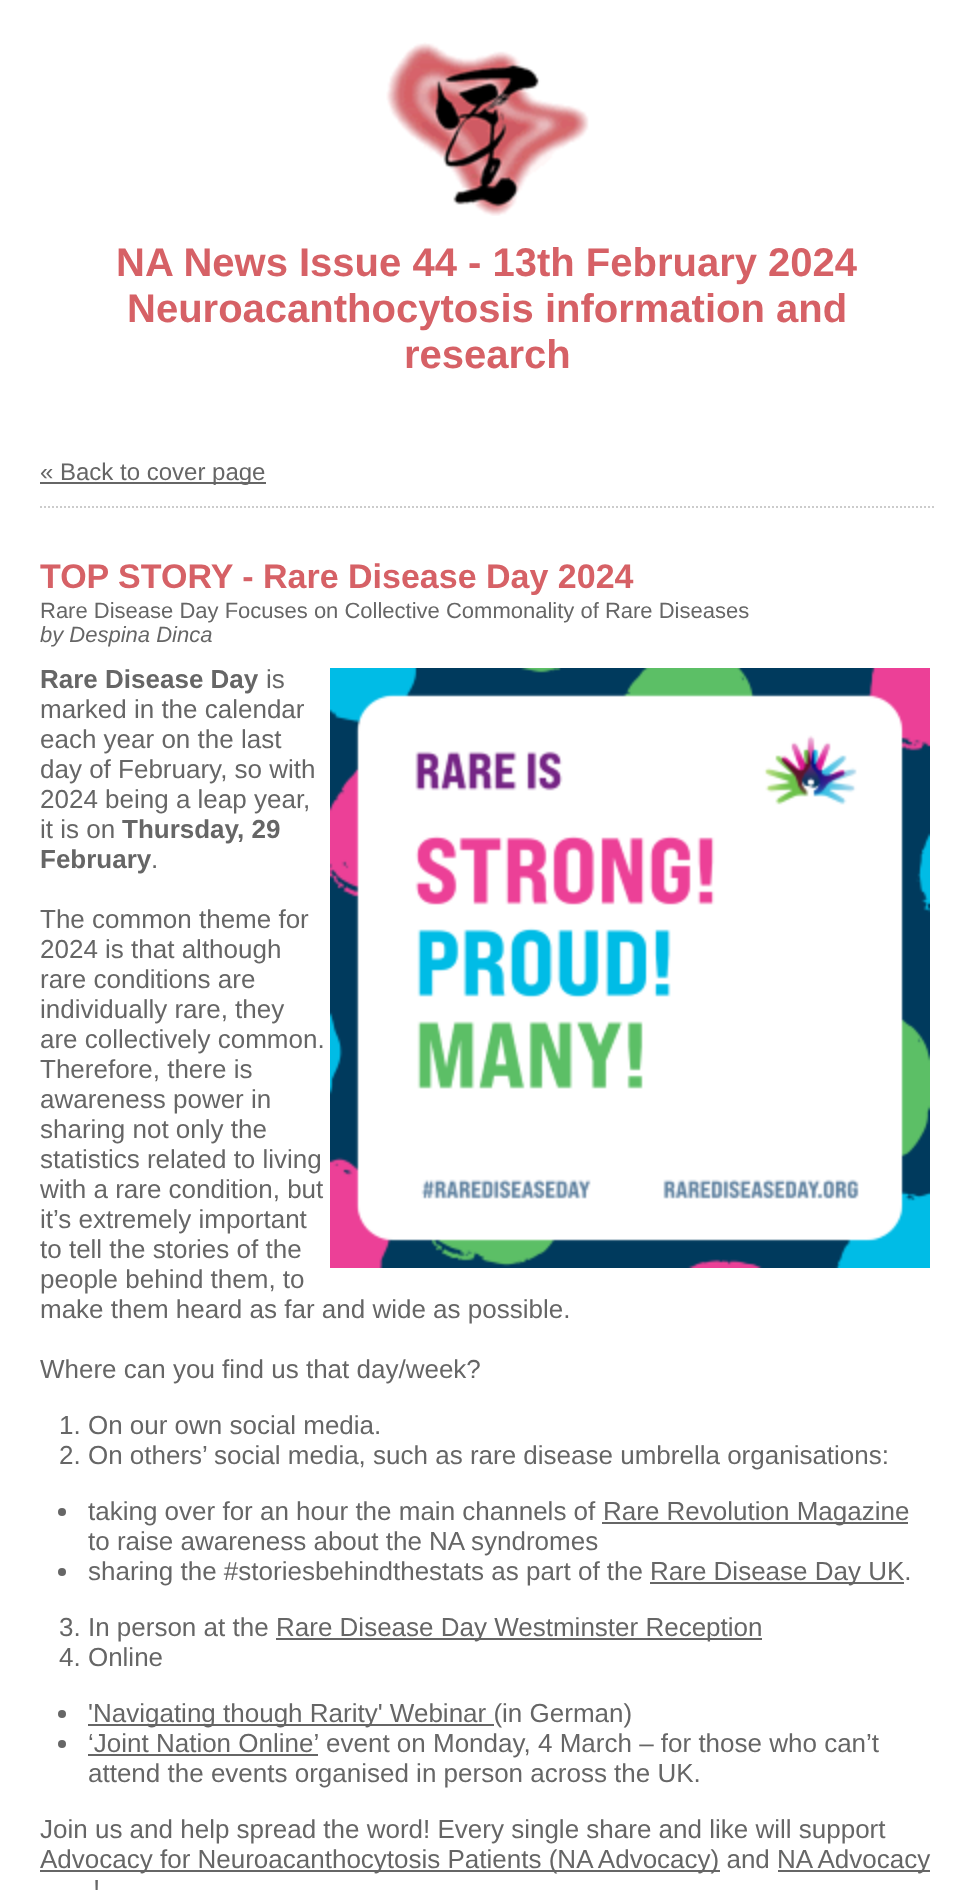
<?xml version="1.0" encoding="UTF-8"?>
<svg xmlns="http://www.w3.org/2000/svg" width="973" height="1890">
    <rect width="100%" height="100%" fill="#FFFFFF"/>
    <image x="386" y="42" width="203" height="174" href="img_01.png"/>
    <text x="116" y="276" font-family="Liberation Sans" font-size="40" font-weight="700" fill="#D66166">NA News Issue 44 - 13th February 2024</text>
    <text x="127" y="322" font-family="Liberation Sans" font-size="40" font-weight="700" fill="#D66166">Neuroacanthocytosis information and</text>
    <text x="404" y="368" font-family="Liberation Sans" font-size="40" font-weight="700" fill="#D66166">research</text>
    <path d="M 40 507 H 934" fill="none" stroke="#CCCCCC" stroke-width="2" stroke-dasharray="2 2"/>
    <rect x="40" y="482" width="226" height="2" fill="#666666"/>
    <text x="40" y="480" font-family="Liberation Sans" font-size="24" fill="#666666">« Back to cover page</text>
    <text x="40" y="588" font-family="Liberation Sans" font-size="34" font-weight="700" fill="#D66166">TOP STORY - Rare Disease Day 2024</text>
    <text x="40" y="618" font-family="Liberation Sans" font-size="22" fill="#666666">Rare Disease Day Focuses on Collective Commonality of Rare Diseases</text>
    <text x="40" y="642" font-family="Liberation Sans" font-size="22" font-style="italic" fill="#666666">by Despina Dinca</text>
    <text x="40" y="688" font-family="Liberation Sans" font-size="26" font-weight="700" fill="#666666">Rare Disease Day</text>
    <text x="266" y="688" font-family="Liberation Sans" font-size="26" fill="#666666">is</text>
    <image x="330" y="668" width="600" height="600" href="img_02.png"/>
    <text font-family="Liberation Sans" font-size="26" fill="#666666">
        <tspan x="40" y="718">marked in the calendar</tspan>
        <tspan x="40" y="748">each year on the last</tspan>
        <tspan x="40" y="778">day of February, so with</tspan>
        <tspan x="40" y="808">2024 being a leap year,</tspan>
        <tspan x="40" y="838">it is on</tspan>
    </text>
    <text x="122" y="838" font-family="Liberation Sans" font-size="26" font-weight="700" fill="#666666">Thursday, 29</text>
    <text x="40" y="868" font-family="Liberation Sans" font-size="26" font-weight="700" fill="#666666">February</text>
    <text x="151" y="868" font-family="Liberation Sans" font-size="26" fill="#666666">.</text>
    <text font-family="Liberation Sans" font-size="26" fill="#666666">
        <tspan x="40" y="928">The common theme for</tspan>
        <tspan x="40" y="958">2024 is that although</tspan>
        <tspan x="40" y="988">rare conditions are</tspan>
        <tspan x="40" y="1018">individually rare, they</tspan>
        <tspan x="40" y="1048">are collectively common.</tspan>
        <tspan x="40" y="1078">Therefore, there is</tspan>
        <tspan x="40" y="1108">awareness power in</tspan>
        <tspan x="40" y="1138">sharing not only the</tspan>
        <tspan x="40" y="1168">statistics related to living</tspan>
        <tspan x="40" y="1198">with a rare condition, but</tspan>
        <tspan x="40" y="1228">it’s extremely important</tspan>
        <tspan x="40" y="1258">to tell the stories of the</tspan>
        <tspan x="40" y="1288">people behind them, to</tspan>
        <tspan x="40" y="1318">make them heard as far and wide as possible.</tspan>
    </text>
    <text x="40" y="1378" font-family="Liberation Sans" font-size="26" fill="#666666">Where can you find us that day/week?</text>
    <text font-family="Liberation Sans" font-size="26" fill="#666666">
        <tspan x="59" y="1434">1. On our own social media.</tspan>
        <tspan x="59" y="1464">2. On others’ social media, such as rare disease umbrella organisations:</tspan>
    </text>
    <circle cx="62" cy="1512" r="4" fill="#666666"/>
    <text x="88" y="1520" font-family="Liberation Sans" font-size="26" fill="#666666">taking over for an hour the main channels of</text>
    <rect x="602" y="1522" width="306" height="2" fill="#666666"/>
    <text x="603" y="1520" font-family="Liberation Sans" font-size="26" fill="#666666">Rare Revolution Magazine</text>
    <text x="88" y="1550" font-family="Liberation Sans" font-size="26" fill="#666666">to raise awareness about the NA syndromes</text>
    <circle cx="62" cy="1572" r="4" fill="#666666"/>
    <text x="88" y="1580" font-family="Liberation Sans" font-size="26" fill="#666666">sharing the #storiesbehindthestats as part of the</text>
    <rect x="650" y="1582" width="254" height="2" fill="#666666"/>
    <text x="650" y="1580" font-family="Liberation Sans" font-size="26" fill="#666666">Rare Disease Day UK.</text>
    <text x="59" y="1636" font-family="Liberation Sans" font-size="26" fill="#666666">3. In person at the</text>
    <rect x="276" y="1638" width="486" height="2" fill="#666666"/>
    <text x="276" y="1636" font-family="Liberation Sans" font-size="26" fill="#666666">Rare Disease Day Westminster Reception</text>
    <text x="59" y="1666" font-family="Liberation Sans" font-size="26" fill="#666666">4. Online</text>
    <circle cx="62" cy="1714" r="4" fill="#666666"/>
    <rect x="88" y="1724" width="406" height="2" fill="#666666"/>
    <text x="88" y="1722" font-family="Liberation Sans" font-size="26" fill="#666666">'Navigating though Rarity' Webinar (in German)</text>
    <circle cx="62" cy="1744" r="4" fill="#666666"/>
    <text x="88" y="1752" font-family="Liberation Sans" font-size="26" fill="#666666">‘Joint Nation Online’</text>
    <rect x="88" y="1754" width="230" height="2" fill="#666666"/>
    <text x="326" y="1752" font-family="Liberation Sans" font-size="26" fill="#666666">event on Monday, 4 March – for those who can’t</text>
    <text x="88" y="1782" font-family="Liberation Sans" font-size="26" fill="#666666">attend the events organised in person across the UK.</text>
    <text x="40" y="1838" font-family="Liberation Sans" font-size="26" fill="#666666">Join us and help spread the word! Every single share and like will support</text>
    <rect x="40" y="1870" width="680" height="2" fill="#666666"/>
    <text x="40" y="1868" font-family="Liberation Sans" font-size="26" fill="#666666">Advocacy for Neuroacanthocytosis Patients (NA Advocacy) and</text>
    <rect x="778" y="1870" width="152" height="2" fill="#666666"/>
    <text x="777" y="1868" font-family="Liberation Sans" font-size="26" fill="#666666">NA Advocacy</text>
    <text x="93" y="1898" font-family="Liberation Sans" font-size="26" fill="#666666">!</text>
</svg>
